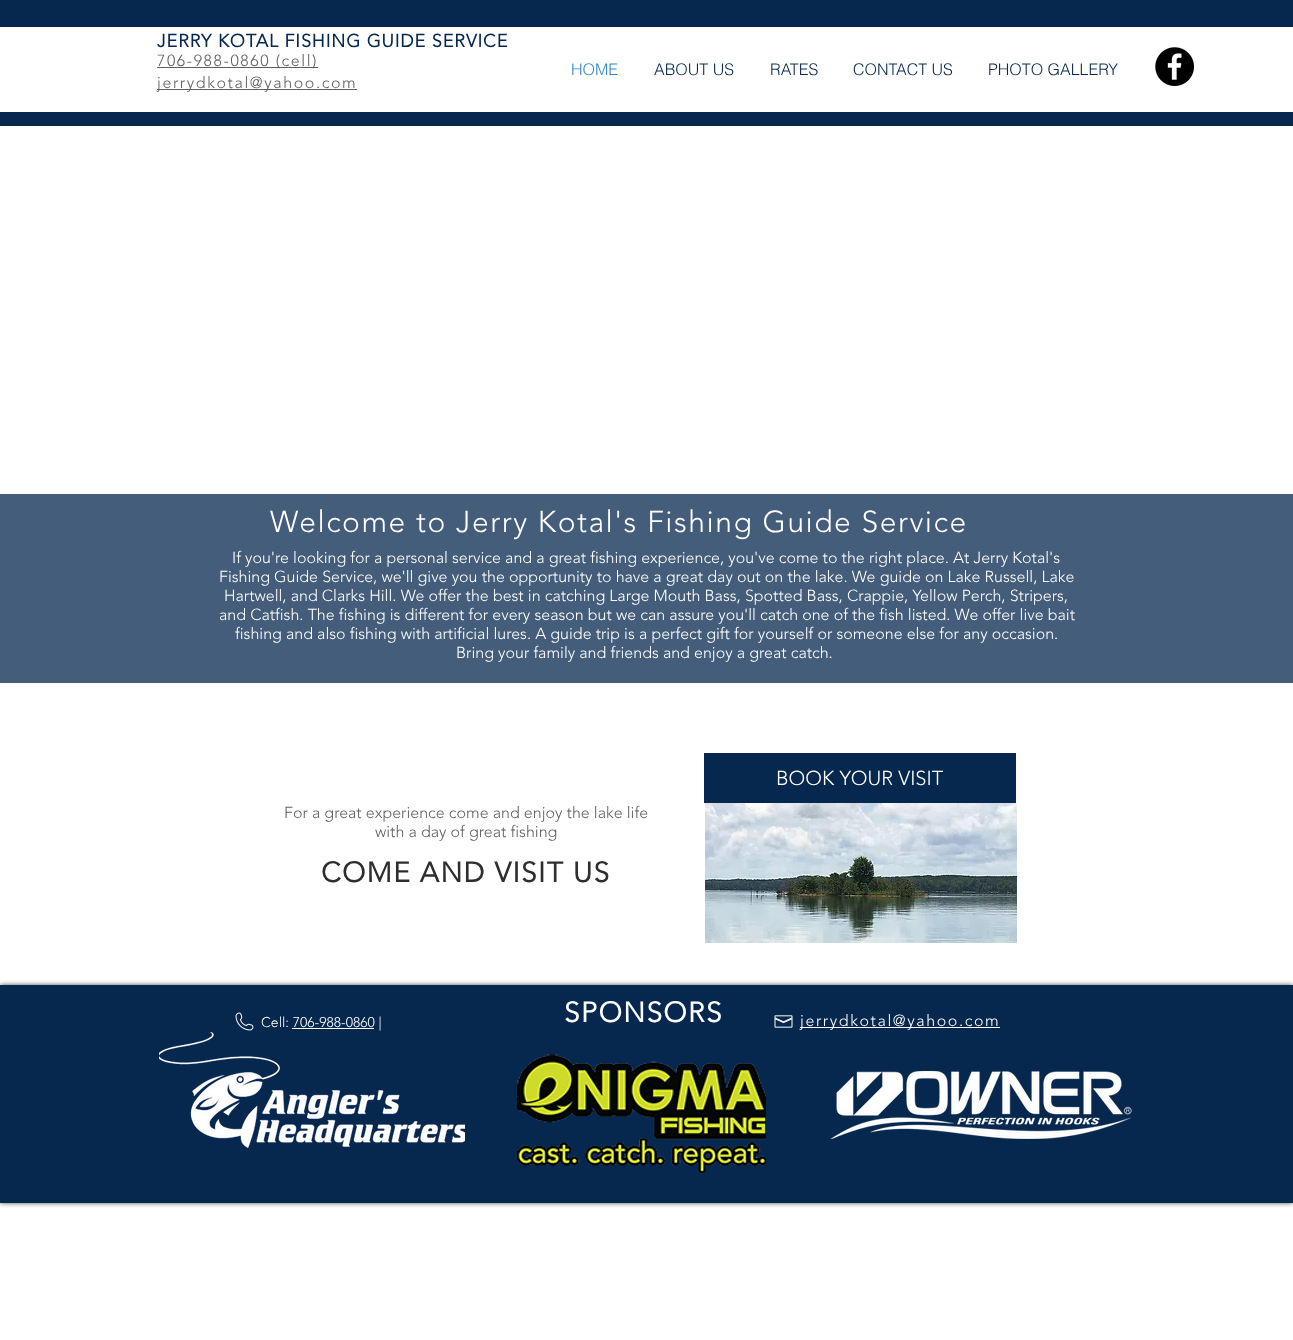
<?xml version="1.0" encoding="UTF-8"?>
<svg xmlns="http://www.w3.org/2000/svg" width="1293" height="1340">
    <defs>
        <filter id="blur1" x="-50%" y="-200%" width="200%" height="500%"><feGaussianBlur stdDeviation="2.5"/></filter>
    </defs>
    <rect width="100%" height="100%" fill="#FFFFFF"/>
    <rect x="0" y="0" width="1293" height="27" fill="#06274E"/>
    <text x="157" y="47" font-family="'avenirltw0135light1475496'" font-size="18" font-weight="700" letter-spacing="0.9" fill="#06274E">JERRY KOTAL FISHING GUIDE SERVICE</text>
    <rect x="157" y="67" width="161" height="1" fill="#605E5E"/>
    <text x="157" y="66" font-family="'avenirltw0135light1475496'" font-size="16" font-weight="300" letter-spacing="1.6" fill="#605E5E">706-988-0860 (cell)</text>
    <rect x="157" y="89" width="200" height="1" fill="#605E5E"/>
    <text x="157" y="88" font-family="'avenirltw0135light1475496'" font-size="16" font-weight="300" letter-spacing="1.6" fill="#605E5E">jerrydkotal@yahoo.com</text>
    <text x="571" y="75" font-family="helvetica" font-size="16" font-weight="300" fill="#3588CC">HOME</text>
    <text x="654" y="75" font-family="helvetica" font-size="16" font-weight="300" fill="#06274E">ABOUT US</text>
    <text x="770" y="75" font-family="helvetica" font-size="16" font-weight="300" fill="#06274E">RATES</text>
    <text x="853" y="75" font-family="helvetica" font-size="16" font-weight="300" fill="#06274E">CONTACT US</text>
    <text x="988" y="75" font-family="helvetica" font-size="16" font-weight="300" fill="#06274E">PHOTO GALLERY</text>
    <image x="1155" y="47" width="39" height="39" href="img_01.png"/>
    <rect x="0" y="112" width="1293" height="14" fill="#06274E"/>
    <rect x="0" y="494" width="1293" height="189" fill="#445D7A"/>
    <text x="270" y="532" font-family="'avenirltw0135light1475496'" font-size="30" font-weight="300" letter-spacing="1.5" fill="#FFFFFF">Welcome to Jerry Kotal's Fishing Guide Service</text>
    <text x="232" y="563" font-family="'avenirltw0135light1475496'" font-size="16" font-weight="300" fill="#FFFFFF">If you're looking for a personal service and a great fishing experience, you've come to the right place. At Jerry Kotal's</text>
    <text x="219" y="582" font-family="'avenirltw0135light1475496'" font-size="16" font-weight="300" fill="#FFFFFF">Fishing Guide Service, we'll give you the opportunity to have a great day out on the lake. We guide on Lake Russell, Lake</text>
    <text x="224" y="601" font-family="'avenirltw0135light1475496'" font-size="16" font-weight="300" fill="#FFFFFF">Hartwell, and Clarks Hill. We offer the best in catching Large Mouth Bass, Spotted Bass, Crappie, Yellow Perch, Stripers,</text>
    <text x="219" y="620" font-family="'avenirltw0135light1475496'" font-size="16" font-weight="300" fill="#FFFFFF">and Catfish. The fishing is different for every season but we can assure you'll catch one of the fish listed. We offer live bait</text>
    <text x="235" y="639" font-family="'avenirltw0135light1475496'" font-size="16" font-weight="300" fill="#FFFFFF">fishing and also fishing with artificial lures. A guide trip is a perfect gift for yourself or someone else for any occasion.</text>
    <text x="456" y="658" font-family="'avenirltw0135light1475496'" font-size="16" font-weight="300" fill="#FFFFFF">Bring your family and friends and enjoy a great catch.</text>
    <rect x="704" y="753" width="312" height="50" fill="#06274E"/>
    <text x="776" y="785" font-family="'avenirltw0135light1475496'" font-size="20" font-weight="300" fill="#FFFFFF">BOOK YOUR VISIT</text>
    <text x="284" y="818" font-family="'avenirltw0135light1475496'" font-size="16" font-weight="300" fill="#605E5E">For a great experience come and enjoy the lake life</text>
    <text x="375" y="837" font-family="'avenirltw0135light1475496'" font-size="16" font-weight="300" fill="#605E5E">with a day of great fishing</text>
    <image x="705" y="803" width="312" height="140" href="img_02.png"/>
    <text x="321" y="882" font-family="'avenirltw0135light1475496'" font-size="28" font-weight="700" letter-spacing="1.4" fill="#2F2E2E">COME AND VISIT US</text>
    <rect x="0" y="985" width="1293" height="218" fill="#000000" fill-opacity="0.7" filter="url(#blur1)"/>
    <rect x="0" y="985" width="1293" height="218" fill="#06274E"/>
    <image x="235" y="1012" width="19" height="19" href="img_03.png"/>
    <text x="261" y="1027" font-family="'avenirltw0135light1475496'" font-size="14" font-weight="300" fill="#FFFFFF">Cell: 706-988-0860 |</text>
    <rect x="292" y="1028" width="82" height="1" fill="#FFFFFF"/>
    <text x="564" y="1022" font-family="'avenirltw0135light1475496'" font-size="28" font-weight="700" letter-spacing="1.4" fill="#FFFFFF">SPONSORS</text>
    <image x="774" y="1015" width="19" height="13" href="img_04.png"/>
    <rect x="800" y="1027" width="200" height="1" fill="#FFFFFF"/>
    <text x="800" y="1026" font-family="'avenirltw0135light1475496'" font-size="16" font-weight="300" letter-spacing="1.6" fill="#FFFFFF">jerrydkotal@yahoo.com</text>
    <image x="159" y="1032" width="306" height="116" href="img_05.png"/>
    <image x="517" y="1054" width="249" height="119" href="img_06.png"/>
    <image x="830" y="1071" width="302" height="68" href="img_07.png"/>
</svg>
